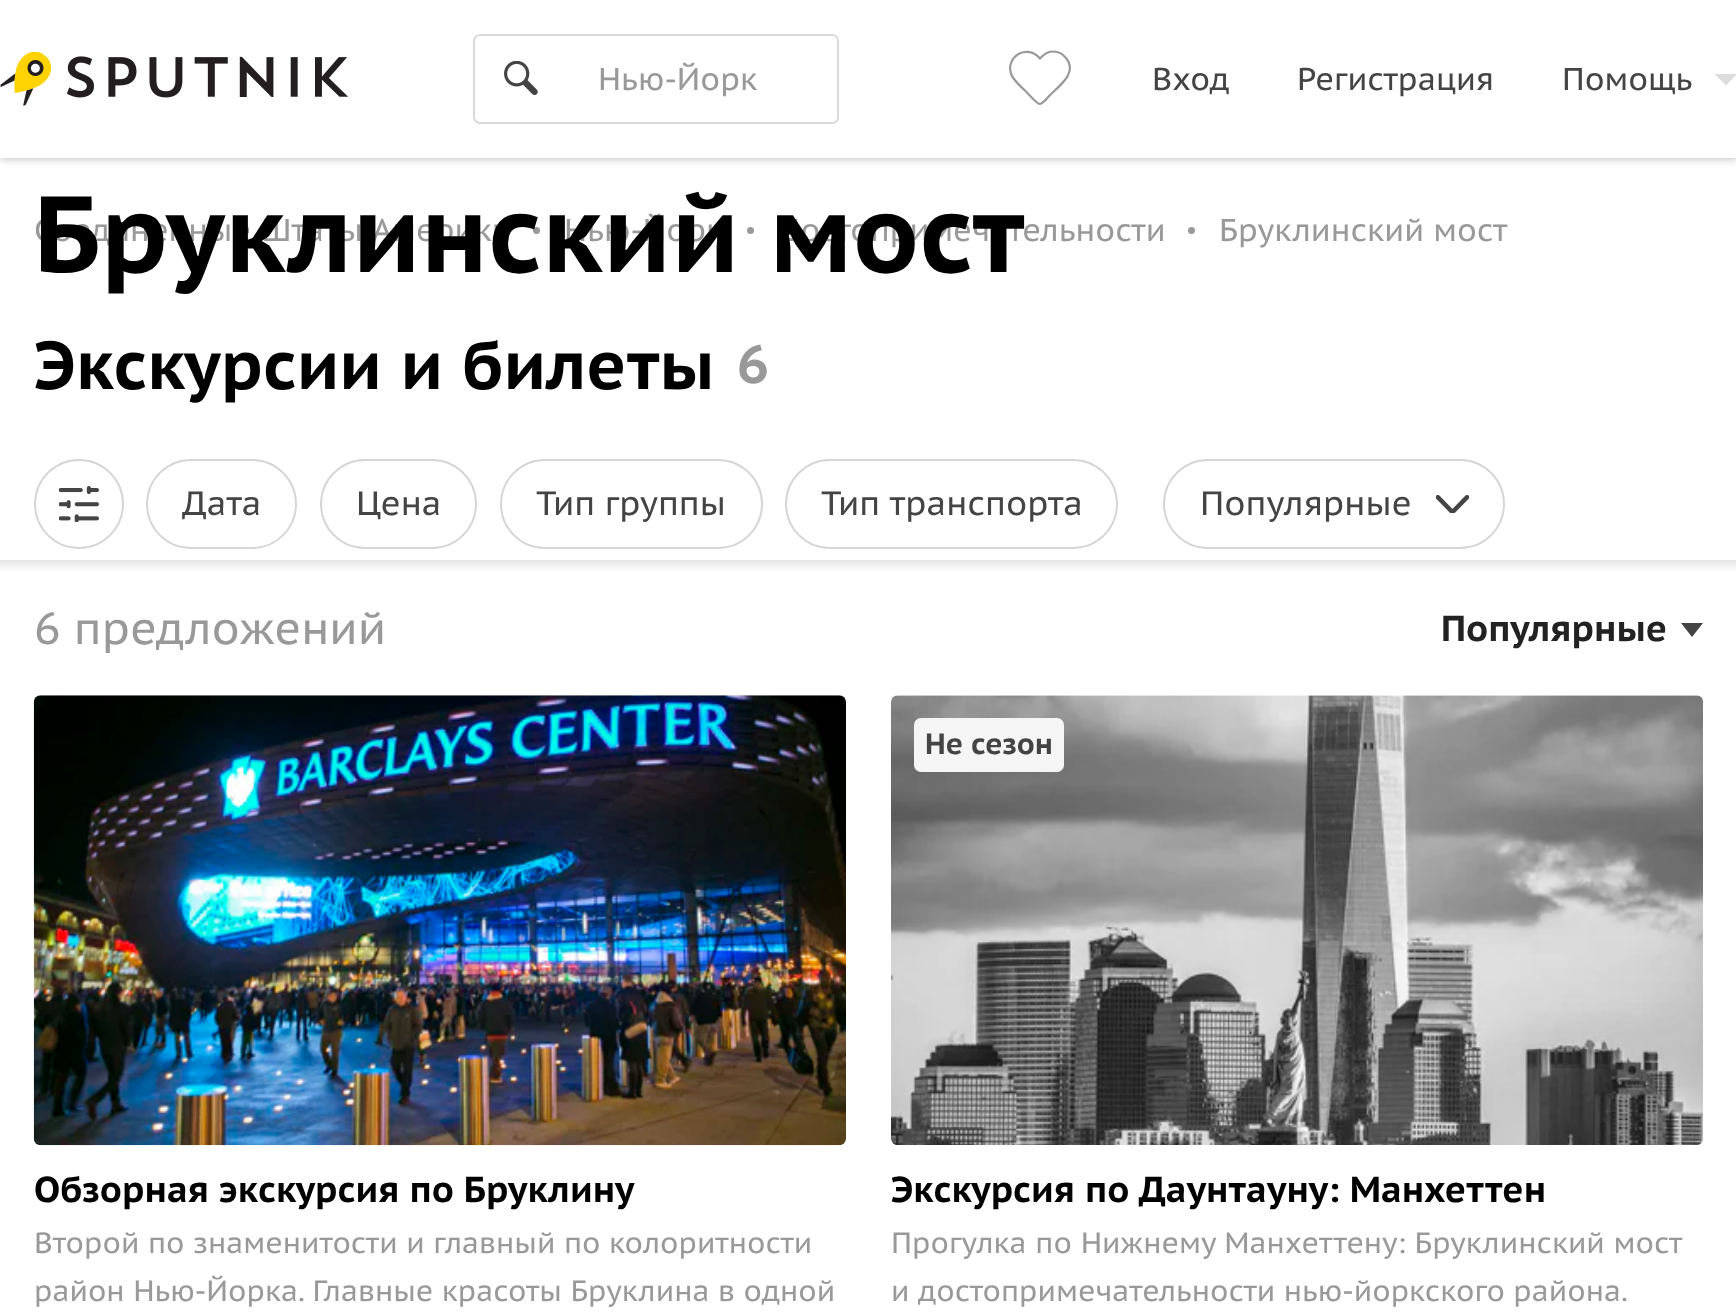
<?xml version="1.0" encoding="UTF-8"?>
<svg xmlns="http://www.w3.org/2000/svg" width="1736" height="1312">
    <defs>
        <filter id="blur1" x="-50%" y="-200%" width="200%" height="500%"><feGaussianBlur stdDeviation="3.5"/></filter>
        <linearGradient id="g1" gradientUnits="userSpaceOnUse" x1="869" y1="572" x2="869" y2="560"><stop offset="0" stop-color="#FFFFFF"/><stop offset="1" stop-color="#E6E6E6"/></linearGradient>
    </defs>
    <rect width="100%" height="100%" fill="#FFFFFF"/>
    <rect x="0" y="2" width="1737" height="158" fill="#000000" fill-opacity="0.2" filter="url(#blur1)"/>
    <rect x="0" y="0" width="1736" height="158" fill="#FFFFFF"/>
    <image x="0" y="52" width="348" height="54" href="img_01.png"/>
    <image x="504" y="61" width="34" height="35" href="img_02.png"/>
    <rect x="474" y="35" width="364" height="88" rx="6" fill="none" stroke="#D9D9D9" stroke-width="2"/>
    <path d="M 565 36 H 832 C 835 36 837 38 837 41 V 117 C 837 120 835 122 832 122 H 565 Z" fill="#FFFFFF"/>
    <text x="598" y="90" font-family="PT Sans Caption" font-size="31.5" fill="#999999">Нью-Йорк</text>
    <path d="M 1053 51.5 C 1048.5 51.5 1045 53.5 1042 56.5 L 1040 58.5 C 1026 42.5 1004.5 58 1011.5 75 C 1014 81 1021.5 87 1026 91.5 C 1028.5 94 1036.5 103.5 1039.5 104 C 1043 104 1048 97 1050 95 C 1059.5 86 1078 72.5 1066 58 C 1063 54 1058 51.5 1053 51.5" fill="none" stroke="#999999" stroke-width="2.2"/>
    <text x="1152" y="90" font-family="PT Sans Caption" font-size="31.5" fill="#444444">Вход</text>
    <text x="1297" y="90" font-family="PT Sans Caption" font-size="31.5" fill="#444444">Регистрация</text>
    <text x="1562" y="90" font-family="PT Sans Caption" font-size="31.5" fill="#444444">Помощь</text>
    <path d="M 1714.5 74 H 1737 L 1726 85.5 Z" fill="#DDDDDD"/>
    <text x="34" y="241" word-spacing="1" font-family="PT Sans Caption" font-size="31.5" fill="#999999">Соединенные Штаты Америки</text>
    <circle cx="536.5" cy="230.5" r="3.5" fill="#999999"/>
    <text x="564" y="241" font-family="PT Sans Caption" font-size="31.5" fill="#999999">Нью-Йорк</text>
    <circle cx="750.5" cy="230.5" r="3.5" fill="#999999"/>
    <text x="778" y="241" font-family="PT Sans Caption" font-size="31.5" fill="#999999">Достопримечательности</text>
    <text x="34" y="272" font-family="PT Sans Caption" font-size="108" font-weight="700" fill="#000000">Бруклинский мост</text>
    <circle cx="1191.5" cy="230.5" r="3.5" fill="#999999"/>
    <text x="1219" y="241" font-family="PT Sans Caption" font-size="31.5" fill="#999999">Бруклинский мост</text>
    <text x="34" y="389" font-family="PT Sans Caption" font-size="67.5" font-weight="700" fill="#000000">Экскурсии и билеты</text>
    <text x="737" y="383" font-family="PT Sans Caption" font-size="54" font-weight="700" fill="#999999">6</text>
    <circle cx="79" cy="504" r="44" fill="none" stroke="#D6D6D6" stroke-width="2"/>
    <image x="59" y="486" width="40" height="36" href="img_03.png"/>
    <rect x="147" y="460" width="149" height="88" rx="44" fill="none" stroke="#D6D6D6" stroke-width="2"/>
    <text x="182" y="515" font-family="PT Sans Caption" font-size="33.75" fill="#444444">Дата</text>
    <rect x="321" y="460" width="155" height="88" rx="44" fill="none" stroke="#D6D6D6" stroke-width="2"/>
    <text x="356" y="515" font-family="PT Sans Caption" font-size="33.75" fill="#444444">Цена</text>
    <rect x="501" y="460" width="261" height="88" rx="44" fill="none" stroke="#D6D6D6" stroke-width="2"/>
    <text x="536" y="515" font-family="PT Sans Caption" font-size="33.75" fill="#444444">Тип группы</text>
    <rect x="786" y="460" width="331" height="88" rx="44" fill="none" stroke="#D6D6D6" stroke-width="2"/>
    <text x="821" y="515" font-family="PT Sans Caption" font-size="33.75" fill="#444444">Тип транспорта</text>
    <rect x="1164" y="460" width="340" height="88" rx="44" fill="none" stroke="#D6D6D6" stroke-width="2"/>
    <text x="1200" y="515" font-family="PT Sans Caption" font-size="33.75" fill="#444444">Популярные</text>
    <image x="1436" y="495" width="33" height="18" href="img_04.png"/>
    <rect x="0" y="560" width="1736" height="11" fill="url(#g1)"/>
    <text x="34" y="644" font-family="PT Sans Caption" font-size="45" fill="#999999">6 предложений</text>
    <text x="1441" y="641" font-family="PT Sans Caption" font-size="36" font-weight="700" fill="#222222">Популярные</text>
    <path d="M 1681 623 H 1703 L 1692 637 Z" fill="#444444"/>
    <image x="33" y="695" width="813" height="451" href="img_05.png"/>
    <text x="34" y="1202" font-family="PT Sans Caption" font-size="36" font-weight="700" fill="#000000">Обзорная экскурсия по Бруклину</text>
    <text font-family="PT Sans Caption" font-size="29.25" fill="#999999">
        <tspan x="34" y="1253">Второй по знаменитости и главный по колоритности</tspan>
        <tspan x="34" y="1301">район Нью-Йорка. Главные красоты Бруклина в одной</tspan>
    </text>
    <image x="891" y="695" width="812" height="450" href="img_06.png"/>
    <rect x="914" y="718" width="150" height="54" rx="7" fill="#F5F5F5"/>
    <text x="925" y="754" font-family="PT Sans Caption" font-size="29.25" font-weight="700" fill="#444444">Не сезон</text>
    <text x="891" y="1202" font-family="PT Sans Caption" font-size="36" font-weight="700" fill="#000000">Экскурсия по Даунтауну: Манхеттен</text>
    <text font-family="PT Sans Caption" font-size="29.25" fill="#999999">
        <tspan x="891" y="1253" word-spacing="0.25">Прогулка по Нижнему Манхеттену: Бруклинский мост</tspan>
        <tspan x="891" y="1301">и достопримечательности нью-йоркского района.</tspan>
    </text>
</svg>
